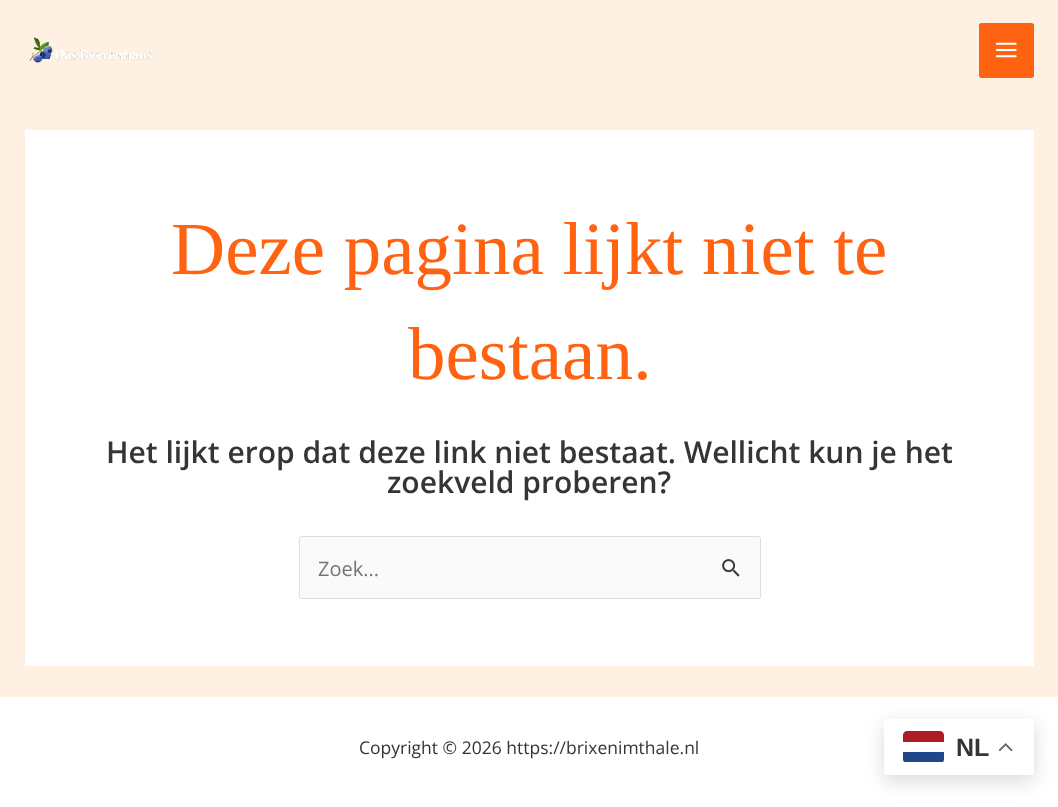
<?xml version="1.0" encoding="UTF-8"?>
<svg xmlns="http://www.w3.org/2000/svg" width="1058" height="807">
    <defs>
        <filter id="blur1" x="-50%" y="-200%" width="200%" height="500%"><feGaussianBlur stdDeviation="9.5"/></filter>
        <clipPath id="clip1"><rect x="903" y="731" width="41" height="32" rx="4"/></clipPath>
    </defs>
    <rect width="100%" height="100%" fill="#FEF1E4"/>
    <image x="29" y="37" width="124" height="26" href="img_01.png"/>
    <rect x="979" y="23" width="55" height="55" rx="2.5" fill="#FF6210"/>
    <image x="995" y="42" width="22" height="16" href="img_02.png"/>
    <rect x="25" y="130" width="1009" height="536" fill="#FFFFFF"/>
    <text x="171" y="274" font-family="Liberation Serif" font-size="75" fill="#FF6210">Deze pagina lijkt niet te</text>
    <text x="408" y="379" font-family="Liberation Serif" font-size="75" fill="#FF6210">bestaan.</text>
    <text x="106" y="463" font-family="Open Sans" font-size="30" font-weight="600" fill="#353535">Het lijkt erop dat deze link niet bestaat. Wellicht kun je het</text>
    <text x="387" y="493" font-family="Open Sans" font-size="30" font-weight="600" fill="#353535">zoekveld proberen?</text>
    <rect x="299.5" y="536.5" width="461" height="62" rx="2" fill="#FAFAFA" stroke="#DDDDDD"/>
    <text x="318" y="576" font-family="Open Sans" font-size="20" fill="#757575">Zoek...</text>
    <image x="722" y="559" width="18" height="18" href="img_03.png"/>
    <rect x="0" y="697" width="1058" height="110" fill="#FFFFFF"/>
    <text x="359" y="754" font-family="Open Sans" font-size="17.5" fill="#353535">Copyright © 2026 https://brixenimthale.nl</text>
    <rect x="884" y="725" width="150" height="56" rx="2.5" fill="#000000" fill-opacity="0.15" filter="url(#blur1)"/>
    <rect x="884" y="719" width="150" height="56" rx="2.5" fill="#FFFFFF"/>
    <g clip-path="url(#clip1)">
        <rect x="903" y="752" width="41" height="10" fill="#21468B"/>
    </g>
    <path d="M 907 731 H 940 C 942 731 944 733 944 735 V 742 H 903 V 735 C 903 733 905 731 907 731 Z" fill="#AE1C28"/>
    <text x="956" y="756" font-family="Liberation Sans" font-size="25" font-weight="700" fill="#353535">NL</text>
    <image x="999" y="743" width="14" height="9" href="img_04.png"/>
</svg>
